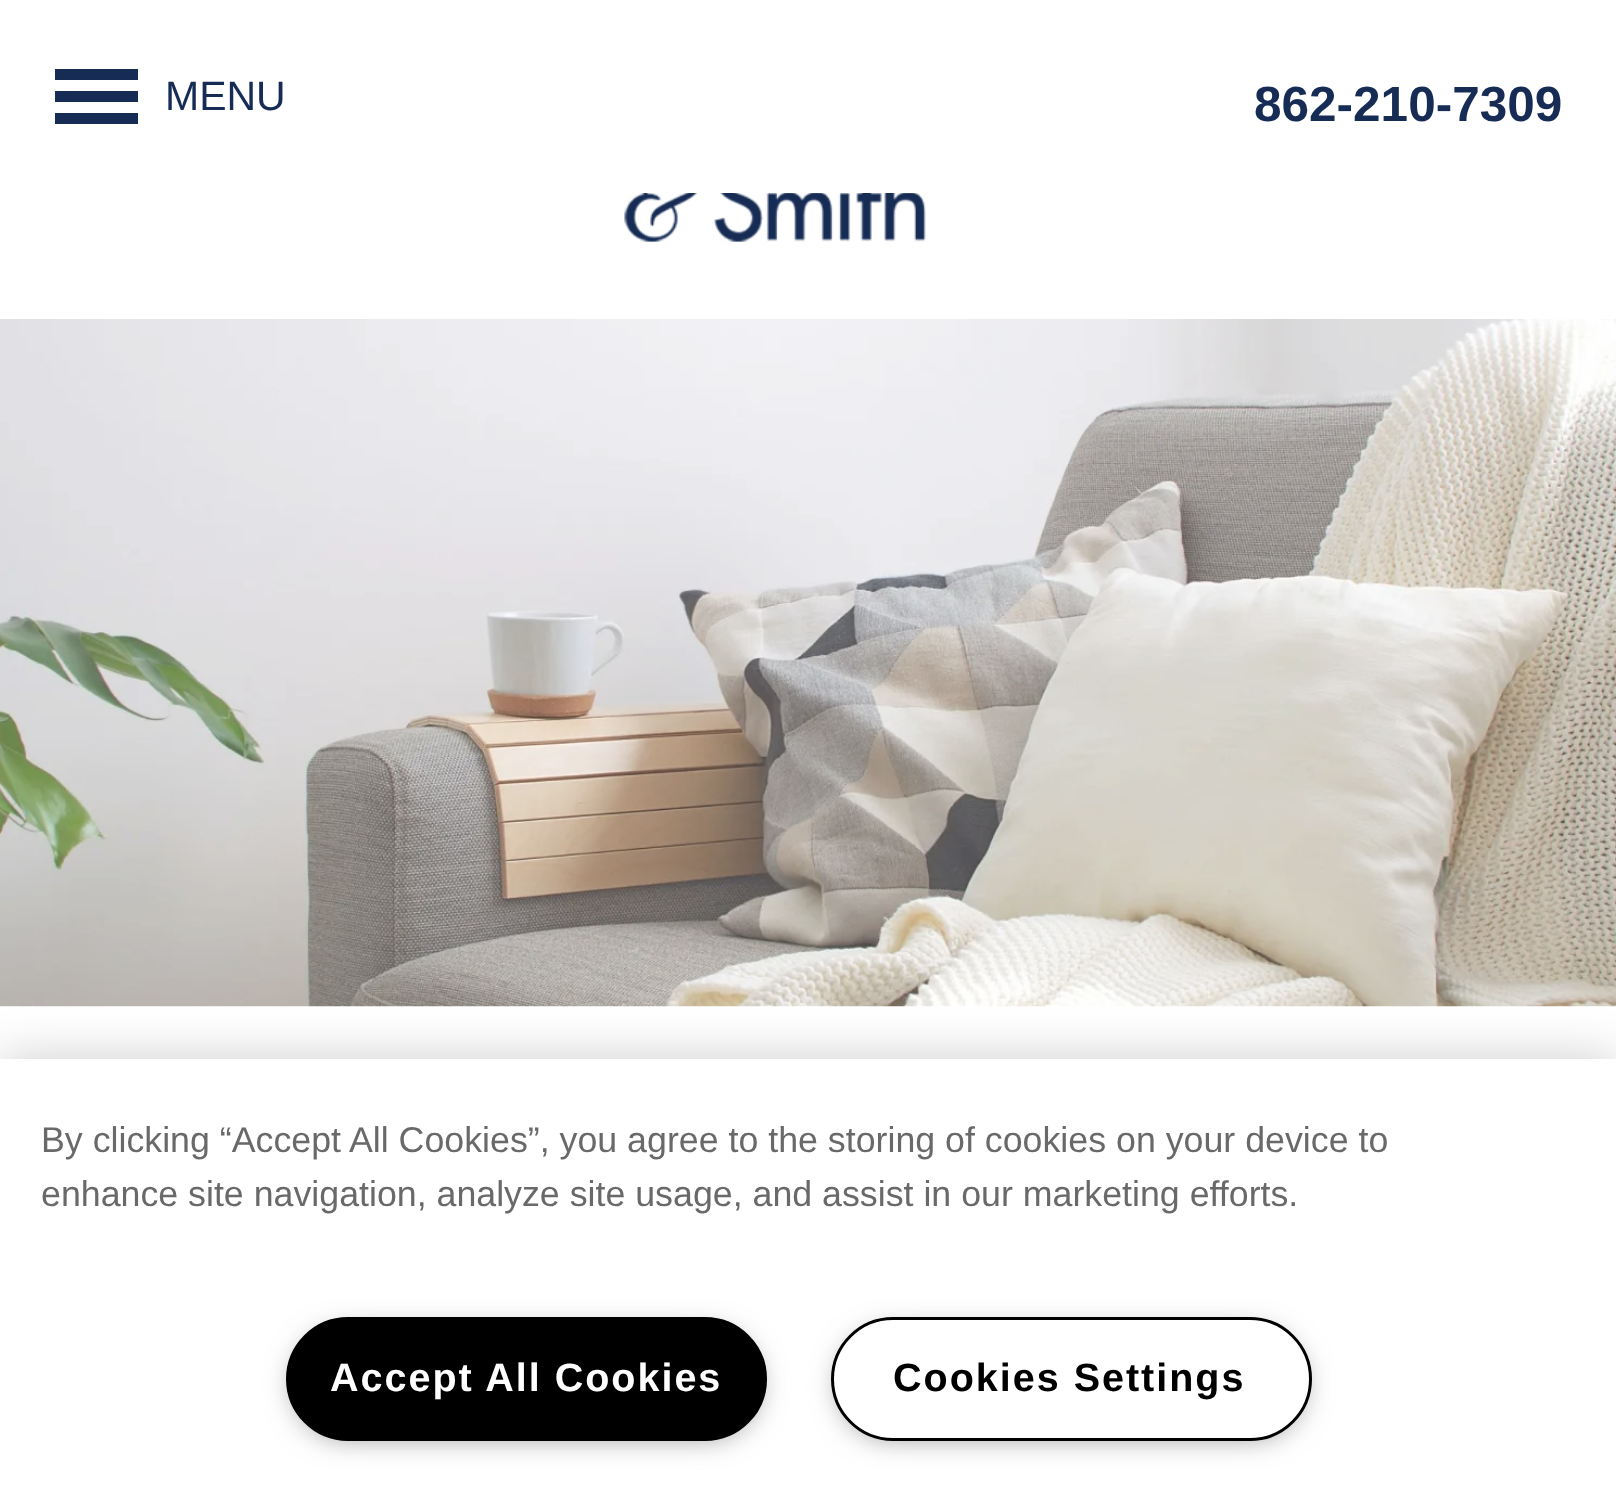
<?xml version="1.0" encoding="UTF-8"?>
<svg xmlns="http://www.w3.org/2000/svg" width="1616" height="1509">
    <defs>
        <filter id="blur1" x="-50%" y="-200%" width="200%" height="500%"><feGaussianBlur stdDeviation="25"/></filter>
        <filter id="blur2" x="-50%" y="-200%" width="200%" height="500%"><feGaussianBlur stdDeviation="14"/></filter>
    </defs>
    <rect width="100%" height="100%" fill="#FFFFFF"/>
    <rect x="55" y="69" width="83" height="11" fill="#162C55"/>
    <rect x="55" y="91" width="83" height="11" fill="#162C55"/>
    <rect x="55" y="113" width="83" height="11" fill="#162C55"/>
    <text x="165" y="110" font-family="Liberation Sans" font-size="41" fill="#162C55">MENU</text>
    <text x="1254" y="121" font-family="Liberation Sans" font-size="49.5" font-weight="700" fill="#162C55">862-210-7309</text>
    <image x="624" y="193" width="302" height="49" href="img_01.png"/>
    <image x="0" y="319" width="1616" height="688" href="img_02.png"/>
    <rect x="0" y="1059" width="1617" height="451" fill="#000000" fill-opacity="0.2" filter="url(#blur1)"/>
    <rect x="0" y="1059" width="1616" height="450" fill="#FFFFFF"/>
    <text font-family="Liberation Sans" font-size="35.75" fill="#696969">
        <tspan x="41" y="1152">By clicking “Accept All Cookies”, you agree to the storing of cookies on your device to</tspan>
        <tspan x="41" y="1206">enhance site navigation, analyze site usage, and assist in our marketing efforts.</tspan>
    </text>
    <rect x="294" y="1331" width="465" height="107" rx="53.5" fill="#999999" filter="url(#blur2)"/>
    <rect x="287.5" y="1318.5" width="478" height="121" rx="60.5" fill="#000000" stroke="#000000" stroke-width="3"/>
    <text x="330" y="1391" font-family="Liberation Sans" font-size="39.5" font-weight="700" letter-spacing="2" fill="#FFFFFF">Accept All Cookies</text>
    <rect x="839" y="1331" width="465" height="107" rx="53.5" fill="#999999" filter="url(#blur2)"/>
    <rect x="832.5" y="1318.5" width="478" height="121" rx="60.5" fill="#FFFFFF" stroke="#000000" stroke-width="3"/>
    <text x="893" y="1391" font-family="Liberation Sans" font-size="39.5" font-weight="700" letter-spacing="2" fill="#000000">Cookies Settings</text>
</svg>
